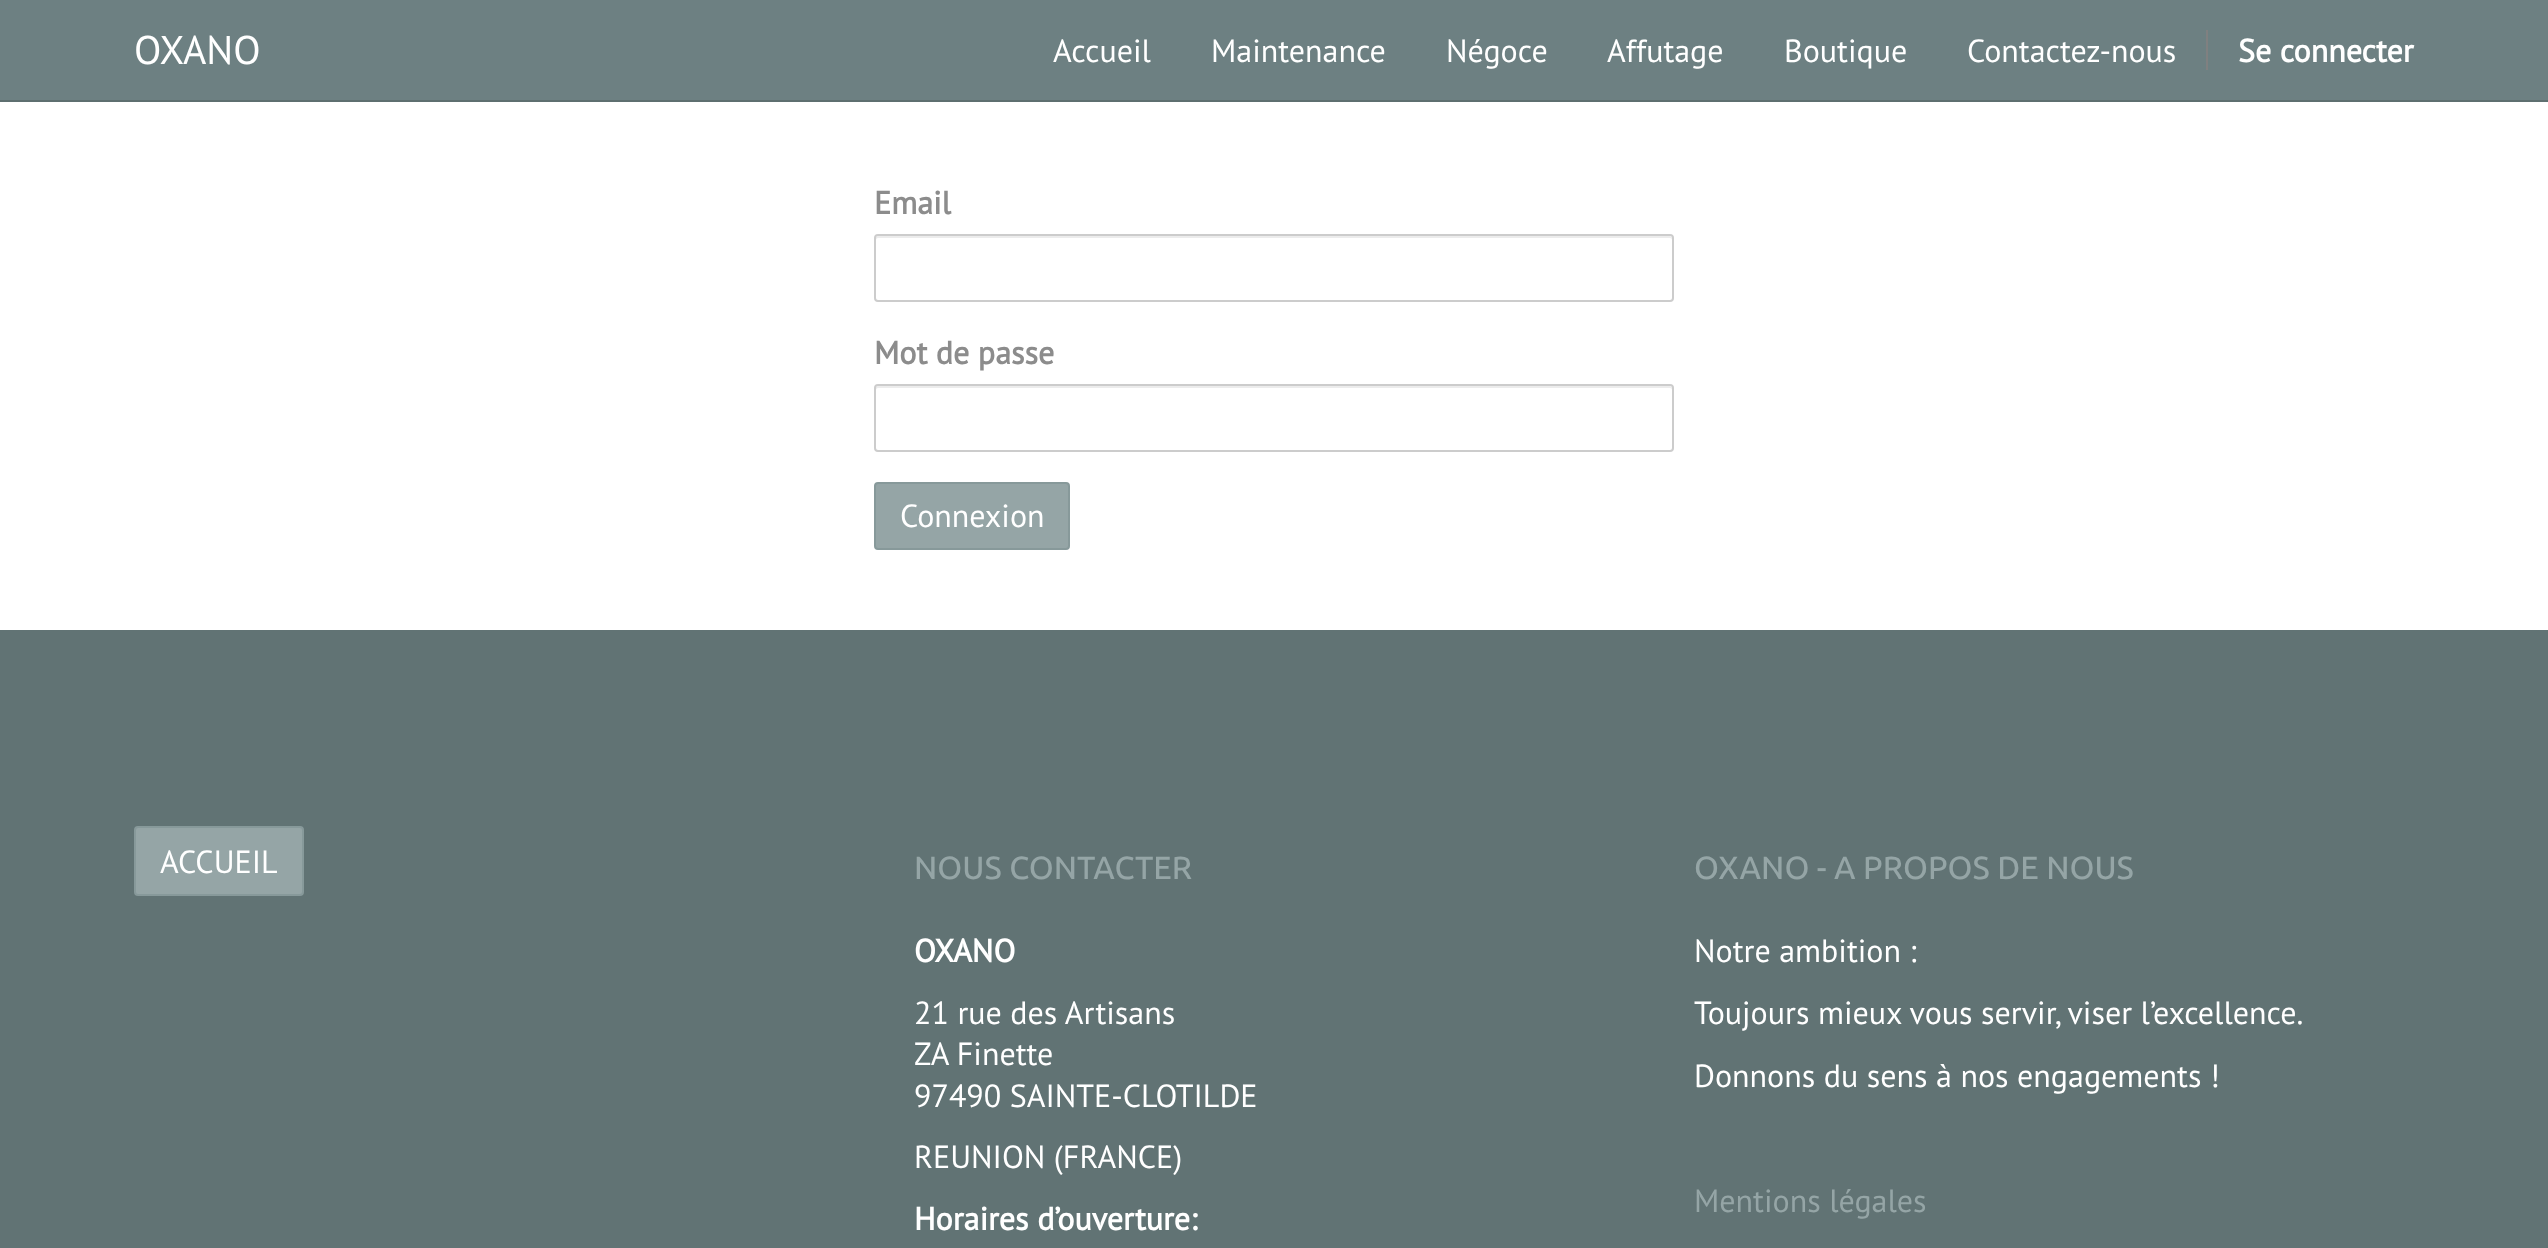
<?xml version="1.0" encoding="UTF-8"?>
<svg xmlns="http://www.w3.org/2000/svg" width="2548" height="1248">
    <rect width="100%" height="100%" fill="#FFFFFF"/>
    <rect x="0" y="0" width="2548" height="100" fill="#6D8082"/>
    <rect x="0" y="100" width="2548" height="2" fill="#5E6F70"/>
    <text x="134" y="64" font-family="PT Sans" font-size="40" fill="#FFFFFF">OXANO</text>
    <text x="1053" y="62" font-family="PT Sans" font-size="32" fill="#FFFFFF">Accueil</text>
    <text x="1211" y="62" font-family="PT Sans" font-size="32" fill="#FFFFFF">Maintenance</text>
    <text x="1446" y="62" font-family="PT Sans" font-size="32" fill="#FFFFFF">Négoce</text>
    <text x="1607" y="62" font-family="PT Sans" font-size="32" fill="#FFFFFF">Affutage</text>
    <text x="1784" y="62" font-family="PT Sans" font-size="32" fill="#FFFFFF">Boutique</text>
    <text x="1967" y="62" font-family="PT Sans" font-size="32" fill="#FFFFFF">Contactez-nous</text>
    <rect x="2206" y="30" width="2" height="40" fill="#808080"/>
    <text x="2238" y="62" font-family="PT Sans" font-size="32" font-weight="700" fill="#FFFFFF">Se connecter</text>
    <text x="874" y="214" font-family="PT Sans" font-size="32" font-weight="700" fill="#8C8C8C">Email</text>
    <path d="M 878 238 H 1670 C 1671 238 1672 239 1672 240 C 1672 239 1672 237 1671 237 L 1670 236 H 878 L 876 237 V 240 C 876 239 877 238 878 238 Z" fill="#ECECEC"/>
    <rect x="875" y="235" width="798" height="66" rx="3" fill="none" stroke="#CCCCCC" stroke-width="2"/>
    <text x="874" y="364" font-family="PT Sans" font-size="32" font-weight="700" fill="#8C8C8C">Mot de passe</text>
    <path d="M 878 388 H 1670 C 1671 388 1672 389 1672 390 C 1672 389 1672 387 1671 387 L 1670 386 H 878 L 876 387 V 390 C 876 389 877 388 878 388 Z" fill="#ECECEC"/>
    <rect x="875" y="385" width="798" height="66" rx="3" fill="none" stroke="#CCCCCC" stroke-width="2"/>
    <rect x="875" y="483" width="194" height="66" rx="3" fill="#95A5A6" stroke="#87999A" stroke-width="2"/>
    <text x="900" y="527" font-family="PT Sans" font-size="32" fill="#FFFFFF">Connexion</text>
    <rect x="0" y="630" width="2548" height="618" fill="#617374"/>
    <rect x="135" y="827" width="168" height="68" rx="3" fill="#95A5A6" stroke="#87999A" stroke-width="2"/>
    <text x="160" y="873" font-family="PT Sans" font-size="32" fill="#FFFFFF">ACCUEIL</text>
    <text x="914" y="879" font-family="Ubuntu" font-size="32" font-weight="500" fill="#95A5A6">NOUS CONTACTER</text>
    <text x="914" y="962" font-family="PT Sans" font-size="32" font-weight="700" fill="#FFFFFF">OXANO</text>
    <text font-family="PT Sans" font-size="32" fill="#FFFFFF">
        <tspan x="914" y="1024">21 rue des Artisans</tspan>
        <tspan x="914" y="1065">ZA Finette</tspan>
        <tspan x="914" y="1107">97490 SAINTE-CLOTILDE</tspan>
        <tspan x="914" y="1168">REUNION (FRANCE)</tspan>
    </text>
    <text x="914" y="1230" font-family="PT Sans" font-size="32" font-weight="700" fill="#FFFFFF">Horaires d’ouverture:</text>
    <text x="1694" y="879" font-family="Ubuntu" font-size="32" font-weight="500" fill="#95A5A6">OXANO - A PROPOS DE NOUS</text>
    <text font-family="PT Sans" font-size="32" fill="#FFFFFF">
        <tspan x="1694" y="962">Notre ambition :</tspan>
        <tspan x="1694" y="1024">Toujours mieux vous servir, viser l’excellence.</tspan>
        <tspan x="1694" y="1087">Donnons du sens à nos engagements !</tspan>
    </text>
    <text x="1694" y="1212" font-family="PT Sans" font-size="32" fill="#95A5A6">Mentions légales</text>
</svg>
